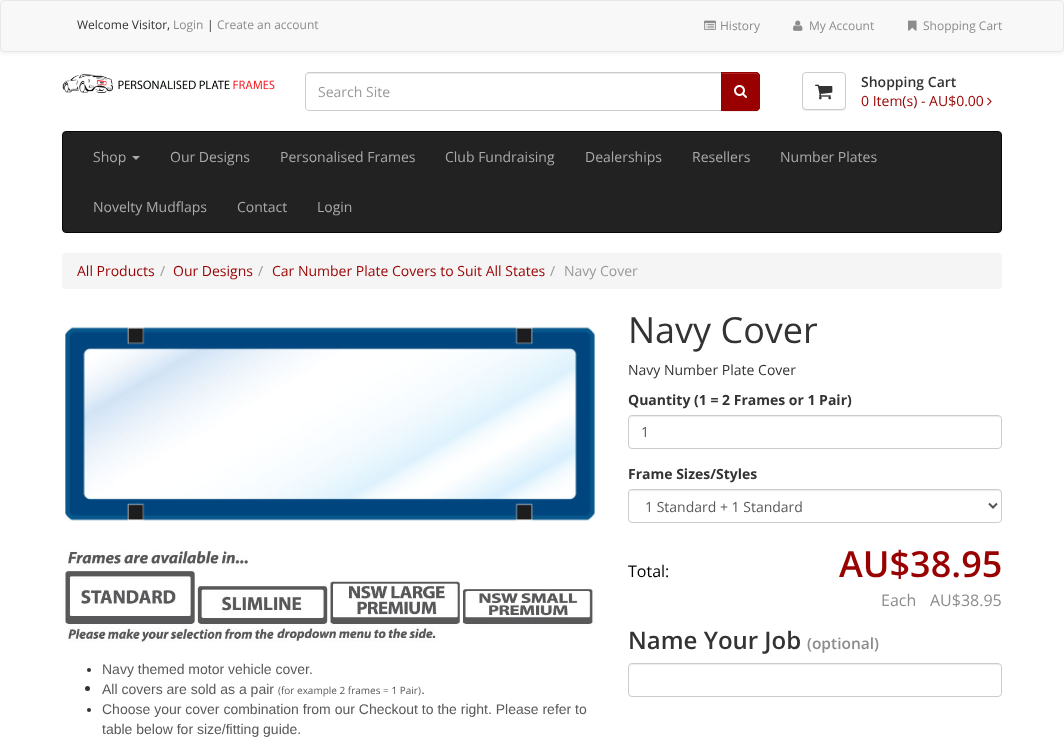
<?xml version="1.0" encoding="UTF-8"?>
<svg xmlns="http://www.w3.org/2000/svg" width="1064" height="738">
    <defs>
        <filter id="blur1" x="-50%" y="-200%" width="200%" height="500%"><feGaussianBlur stdDeviation="2.5"/></filter>
        <filter id="blur2" x="-50%" y="-200%" width="200%" height="500%"><feGaussianBlur stdDeviation="0.5"/></filter>
    </defs>
    <rect width="100%" height="100%" fill="#FFFFFF"/>
    <rect x="0" y="1" width="1064" height="52" rx="4" fill="#000000" fill-opacity="0.07" filter="url(#blur1)"/>
    <rect x="0.5" y="0.5" width="1063" height="51" rx="3.5" fill="#F8F8F8" stroke="#E7E7E7"/>
    <text x="77" y="29" font-family="Open Sans" font-size="12" fill="#333333">Welcome Visitor,</text>
    <text x="173" y="29" font-family="Open Sans" font-size="12" fill="#8C8C8C">Login</text>
    <text x="207" y="29" font-family="Open Sans" font-size="12" fill="#333333">|</text>
    <text x="217" y="29" font-family="Open Sans" font-size="12" fill="#8C8C8C">Create an account</text>
    <image x="704" y="20" width="12" height="10" href="img_01.png"/>
    <text x="720" y="30" font-family="Open Sans" font-size="12" fill="#8C8C8C">History</text>
    <image x="793" y="20" width="10" height="11" href="img_02.png"/>
    <text x="809" y="30" font-family="Open Sans" font-size="12" fill="#8C8C8C">My Account</text>
    <image x="908" y="20" width="9" height="11" href="img_03.png"/>
    <text x="923" y="30" font-family="Open Sans" font-size="12" fill="#8C8C8C">Shopping Cart</text>
    <image x="62" y="74" width="213" height="19" href="img_04.png"/>
    <path d="M 309 74 H 721 V 73 H 309 C 307 73 306 75 306 77 C 306 75 307 74 309 74 Z" fill="#ECECEC"/>
    <path d="M 309 72.5 H 721.5 V 110.5 H 309 C 307 110.5 305.5 109 305.5 107 V 76 C 305.5 74 307 72.5 309 72.5 Z" fill="none" stroke="#CCCCCC"/>
    <text x="318" y="97" font-family="Open Sans" font-size="14" fill="#999999">Search Site</text>
    <rect x="721" y="73" width="39" height="39" rx="4" fill="#000000" fill-opacity="0.07" filter="url(#blur2)"/>
    <path d="M 721 72 H 756 C 758 72 760 74 760 76 V 107 C 760 109 758 111 756 111 H 721 Z" fill="#990000"/>
    <path d="M 722 74 H 756 C 758 74 759 75 759 77 V 76 C 759 74.5 757.5 73 756 73 H 722 Z" fill="#A82626"/>
    <path d="M 721.5 72.5 H 756 C 758 72.5 759.5 74 759.5 76 V 107 C 759.5 109 758 110.5 756 110.5 H 721.5 Z" fill="none" stroke="#990000"/>
    <image x="734" y="85" width="13" height="13" href="img_05.png"/>
    <rect x="802" y="73" width="44" height="38" rx="4" fill="#000000" fill-opacity="0.07" filter="url(#blur2)"/>
    <rect x="802.5" y="72.5" width="43" height="37" rx="3.5" fill="#FFFFFF" stroke="#CCCCCC"/>
    <image x="815" y="84" width="18" height="16" href="img_06.png"/>
    <text x="861" y="87" font-family="Open Sans" font-size="14" font-weight="600" fill="#333333">Shopping Cart</text>
    <text x="861" y="106" font-family="Open Sans" font-size="14" fill="#990000">0 Item(s) - AU$0.00</text>
    <image x="987" y="97" width="5" height="9" href="img_07.png"/>
    <rect x="62.5" y="131.5" width="939" height="101" rx="3.5" fill="#222222" stroke="#080808"/>
    <text x="93" y="162" font-family="Open Sans" font-size="14" fill="#AAAAAA">Shop</text>
    <path d="M 132 156 H 140 L 136 160 Z" fill="#AAAAAA"/>
    <text x="170" y="162" font-family="Open Sans" font-size="14" fill="#AAAAAA">Our Designs</text>
    <text x="280" y="162" font-family="Open Sans" font-size="14" fill="#AAAAAA">Personalised Frames</text>
    <text x="445" y="162" font-family="Open Sans" font-size="14" fill="#AAAAAA">Club Fundraising</text>
    <text x="585" y="162" font-family="Open Sans" font-size="14" fill="#AAAAAA">Dealerships</text>
    <text x="692" y="162" font-family="Open Sans" font-size="14" fill="#AAAAAA">Resellers</text>
    <text x="780" y="162" font-family="Open Sans" font-size="14" fill="#AAAAAA">Number Plates</text>
    <text x="93" y="212" font-family="Open Sans" font-size="14" fill="#AAAAAA">Novelty Mudflaps</text>
    <text x="237" y="212" font-family="Open Sans" font-size="14" fill="#AAAAAA">Contact</text>
    <text x="317" y="212" font-family="Open Sans" font-size="14" fill="#AAAAAA">Login</text>
    <rect x="62" y="253" width="940" height="36" rx="4" fill="#F5F5F5"/>
    <text x="77" y="276" font-family="Open Sans" font-size="14" fill="#990000">All Products</text>
    <text x="160" y="276" font-family="Open Sans" font-size="14" fill="#999999">/</text>
    <text x="173" y="276" font-family="Open Sans" font-size="14" fill="#990000">Our Designs</text>
    <text x="258" y="276" font-family="Open Sans" font-size="14" fill="#999999">/</text>
    <text x="272" y="276" font-family="Open Sans" font-size="14" fill="#990000">Car Number Plate Covers to Suit All States</text>
    <text x="550" y="276" font-family="Open Sans" font-size="14" fill="#999999">/</text>
    <text x="564" y="276" font-family="Open Sans" font-size="14" fill="#999999">Navy Cover</text>
    <text x="628" y="343" font-family="Open Sans" font-size="36" fill="#333333">Navy Cover</text>
    <text x="628" y="375" font-family="Open Sans" font-size="14" fill="#333333">Navy Number Plate Cover</text>
    <text x="628" y="405" font-family="Open Sans" font-size="14" font-weight="700" fill="#333333">Quantity (1 = 2 Frames or 1 Pair)</text>
    <path d="M 632 417 H 998 C 1000 417 1001 418 1001 420 C 1001 418 1000 416 998 416 H 632 L 630 417 L 629 420 C 629 418 630 417 632 417 Z" fill="#ECECEC"/>
    <rect x="628.5" y="415.5" width="373" height="33" rx="3.5" fill="none" stroke="#CCCCCC"/>
    <text x="641" y="437" font-family="Open Sans" font-size="14" fill="#595959">1</text>
    <text x="628" y="479" font-family="Open Sans" font-size="14" font-weight="700" fill="#333333">Frame Sizes/Styles</text>
    <path d="M 632 491 H 998 C 1000 491 1001 492 1001 494 C 1001 492 1000 490 998 490 H 632 L 630 491 L 629 494 C 629 492 630 491 632 491 Z" fill="#ECECEC"/>
    <rect x="628.5" y="489.5" width="373" height="33" rx="3.5" fill="none" stroke="#CCCCCC"/>
    <path d="M 989 503.5 L 993 507.5 L 997 503.5" fill="none" stroke="#555555" stroke-width="2"/>
    <text x="645" y="512" font-family="Open Sans" font-size="14" fill="#595959">1 Standard + 1 Standard</text>
    <text x="628" y="577" font-family="Open Sans" font-size="16" fill="#000000">Total:</text>
    <text x="839" y="577" font-family="Open Sans" font-size="36" font-weight="600" fill="#990000">AU$38.95</text>
    <text x="881" y="606" font-family="Open Sans" font-size="16" fill="#8C8C8C">Each</text>
    <text x="930" y="606" font-family="Open Sans" font-size="16" fill="#8C8C8C">AU$38.95</text>
    <text x="628" y="649" font-family="Open Sans" font-size="24" font-weight="600" fill="#333333">Name Your Job</text>
    <text x="807" y="649" font-family="Open Sans" font-size="15.5" font-weight="600" fill="#8C8C8C">(optional)</text>
    <path d="M 632 665 H 998 C 1000 665 1001 666 1001 668 C 1001 666 1000 664 998 664 H 632 L 630 665 L 629 668 C 629 666 630 665 632 665 Z" fill="#ECECEC"/>
    <rect x="628.5" y="663.5" width="373" height="33" rx="3.5" fill="none" stroke="#CCCCCC"/>
    <image x="62" y="326" width="534" height="195" href="img_08.png"/>
    <image x="63" y="551" width="533" height="91" href="img_09.png"/>
    <circle cx="89" cy="670" r="2" fill="#333333"/>
    <text x="102" y="674" font-family="Liberation Sans" font-size="14" fill="#595959">Navy themed motor vehicle cover.</text>
    <circle cx="87.5" cy="688.5" r="2.5" fill="#333333"/>
    <text x="102" y="694" font-family="Liberation Sans" font-size="14" fill="#595959">All covers are sold as a pair</text>
    <text x="278" y="694" font-family="Open Sans" font-size="10" fill="#595959">(for example 2 frames = 1 Pair)</text>
    <text x="421" y="694" font-family="Liberation Sans" font-size="14" fill="#595959">.</text>
    <circle cx="89" cy="710" r="2" fill="#333333"/>
    <text font-family="Liberation Sans" font-size="14" fill="#595959">
        <tspan x="102" y="714">Choose your cover combination from our Checkout to the right. Please refer to</tspan>
        <tspan x="102" y="734">table below for size/fitting guide.</tspan>
    </text>
</svg>
